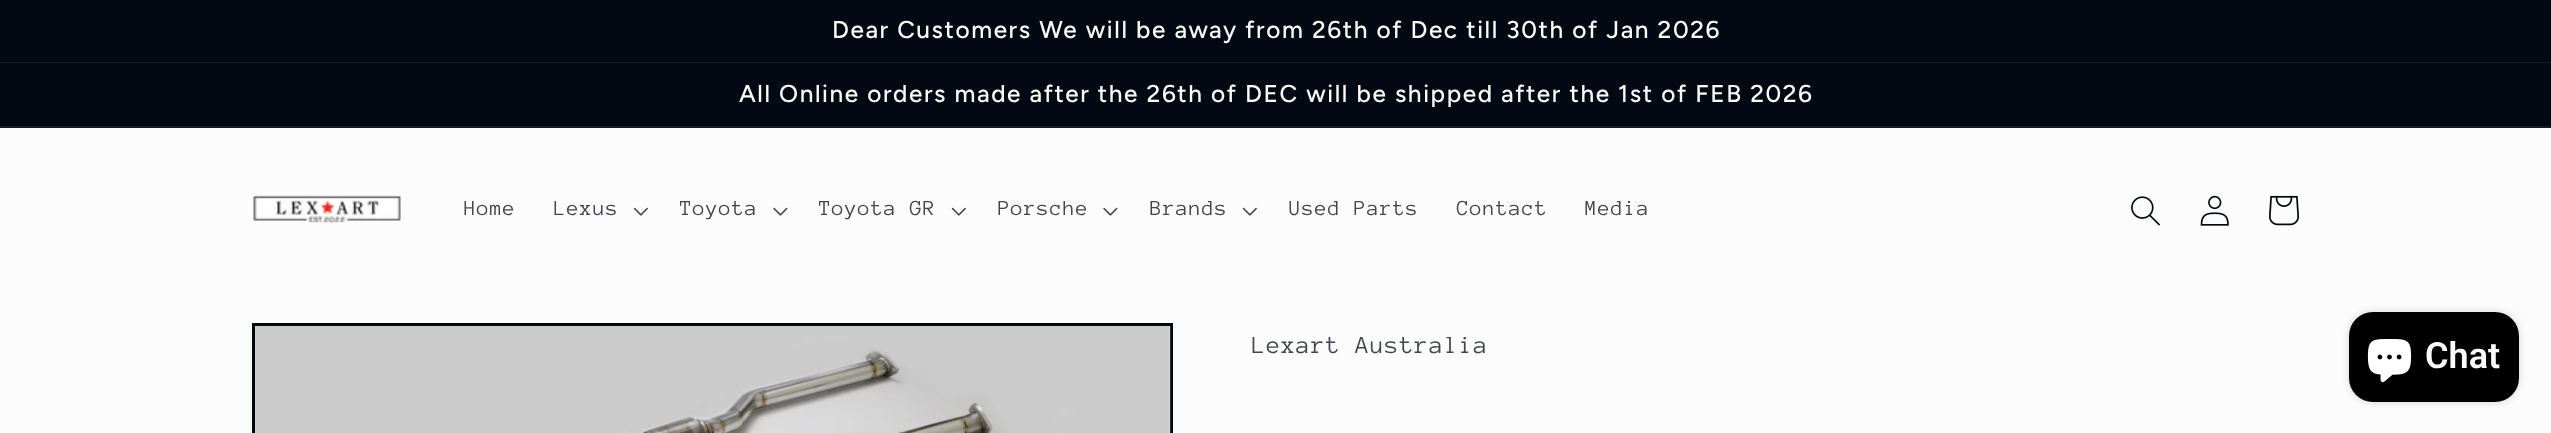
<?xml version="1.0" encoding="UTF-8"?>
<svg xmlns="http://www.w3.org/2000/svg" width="2551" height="433">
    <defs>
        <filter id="blur1" x="-50%" y="-200%" width="200%" height="500%"><feGaussianBlur stdDeviation="4"/></filter>
    </defs>
    <rect width="100%" height="100%" fill="#FCFCFC"/>
    <rect x="0" y="0" width="2551" height="62" fill="#020912"/>
    <rect x="0" y="62" width="2551" height="1" fill="#161C25"/>
    <text x="832" y="38" font-family="Figtree" font-size="24.4" font-weight="500" letter-spacing="1.58" fill="#FCFCFC">Dear Customers We will be away from 26th of Dec till 30th of Jan 2026</text>
    <rect x="0" y="63" width="2551" height="63" fill="#020912"/>
    <rect x="0" y="126" width="2551" height="2" fill="#161C25"/>
    <text x="739" y="102" font-family="Figtree" font-size="24.4" font-weight="500" letter-spacing="1.58" fill="#FCFCFC">All Online orders made after the 26th of DEC will be shipped after the 1st of FEB 2026</text>
    <image x="253" y="195" width="148" height="28" href="img_01.png"/>
    <text x="464" y="215" font-family="Anonymous Pro" font-size="22" letter-spacing="1" fill="#41464D">Home</text>
    <text x="554" y="215" font-family="Anonymous Pro" font-size="22" letter-spacing="1" fill="#41464D">Lexus</text>
    <image x="633" y="207" width="15" height="9" href="img_02.png"/>
    <text x="680" y="215" font-family="Anonymous Pro" font-size="22" letter-spacing="1" fill="#41464D">Toyota</text>
    <image x="773" y="207" width="15" height="9" href="img_03.png"/>
    <text x="819" y="215" font-family="Anonymous Pro" font-size="22" letter-spacing="1" fill="#41464D">Toyota GR</text>
    <image x="951" y="207" width="15" height="9" href="img_02.png"/>
    <text x="998" y="215" font-family="Anonymous Pro" font-size="22" letter-spacing="1" fill="#41464D">Porsche</text>
    <image x="1103" y="207" width="15" height="9" href="img_03.png"/>
    <text x="1150" y="215" font-family="Anonymous Pro" font-size="22" letter-spacing="1" fill="#41464D">Brands</text>
    <image x="1242" y="207" width="15" height="9" href="img_02.png"/>
    <text x="1289" y="215" font-family="Anonymous Pro" font-size="22" letter-spacing="1" fill="#41464D">Used Parts</text>
    <text x="1457" y="215" font-family="Anonymous Pro" font-size="22" letter-spacing="1" fill="#41464D">Contact</text>
    <text x="1585" y="215" font-family="Anonymous Pro" font-size="22" letter-spacing="1" fill="#41464D">Media</text>
    <image x="2131" y="196" width="29" height="30" href="img_04.png"/>
    <image x="2200" y="195" width="29" height="31" href="img_05.png"/>
    <image x="2269" y="195" width="30" height="31" href="img_06.png"/>
    <rect x="253.5" y="324.5" width="918" height="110" fill="none" stroke="#020912" stroke-width="3"/>
    <image x="255" y="326" width="916" height="107" href="img_07.png"/>
    <text x="1252" y="353" font-family="Anonymous Pro" font-size="25.25" letter-spacing="1" fill="#41464D">Lexart Australia</text>
    <rect x="2349" y="312" width="170" height="90" rx="24" fill="#000000" fill-opacity="0.15" filter="url(#blur1)"/>
    <rect x="2349" y="312" width="170" height="90" rx="24" fill="#000000"/>
    <image x="2367" y="339" width="45" height="44" href="img_08.png"/>
    <text x="2425" y="368" font-family="Roboto" font-size="36" font-weight="600" fill="#FCFCFC">Chat</text>
</svg>
